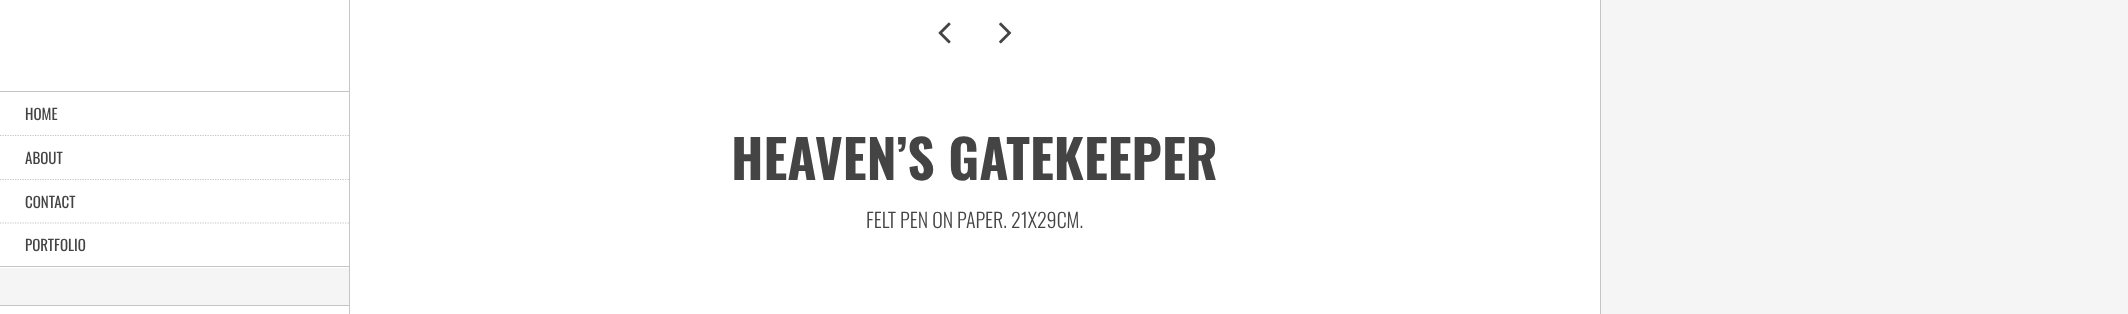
<?xml version="1.0" encoding="UTF-8"?>
<svg xmlns="http://www.w3.org/2000/svg" width="2128" height="314">
    <rect width="100%" height="100%" fill="#F5F5F5"/>
    <rect x="349" y="0" width="1" height="314" fill="#C5C5C5"/>
    <rect x="0" y="0" width="349" height="136" fill="#FFFFFF"/>
    <rect x="0" y="91" width="349" height="1" fill="#C5C5C5"/>
    <path d="M 0 135.5 H 349" fill="none" stroke="#C5C5C5" stroke-width="1.2" stroke-dasharray="1.25 1.25"/>
    <text x="25" y="120" font-family="Oswald" font-size="15" fill="#444444">HOME</text>
    <rect x="0" y="136" width="349" height="44" fill="#FFFFFF"/>
    <path d="M 0 179.5 H 349" fill="none" stroke="#C5C5C5" stroke-width="1.2" stroke-dasharray="1.25 1.25"/>
    <text x="25" y="164" font-family="Oswald" font-size="15" fill="#444444">ABOUT</text>
    <rect x="0" y="180" width="349" height="88" fill="#FFFFFF"/>
    <path d="M 0 223 H 349" fill="none" stroke="#C5C5C5" stroke-width="1.2" stroke-dasharray="1.25 1.25"/>
    <text x="25" y="208" font-family="Oswald" font-size="15" fill="#444444">CONTACT</text>
    <rect x="0" y="266" width="349" height="1" fill="#C5C5C5"/>
    <text x="25" y="251" font-family="Oswald" font-size="15" fill="#444444">PORTFOLIO</text>
    <rect x="0" y="305" width="349" height="1" fill="#C5C5C5"/>
    <rect x="0" y="306" width="349" height="8" fill="#FFFFFF"/>
    <rect x="350" y="0" width="1250" height="314" fill="#FFFFFF"/>
    <rect x="1600" y="0" width="1" height="314" fill="#C5C5C5"/>
    <image x="938" y="22" width="13" height="22" href="img_01.png"/>
    <image x="999" y="22" width="13" height="22" href="img_02.png"/>
    <text x="731" y="180" font-family="Oswald" font-size="53.25" font-weight="700" fill="#444444">HEAVEN’S GATEKEEPER</text>
    <text x="866" y="228" font-family="Oswald" font-size="20" font-weight="300" fill="#444444">FELT PEN ON PAPER. 21X29CM.</text>
</svg>
